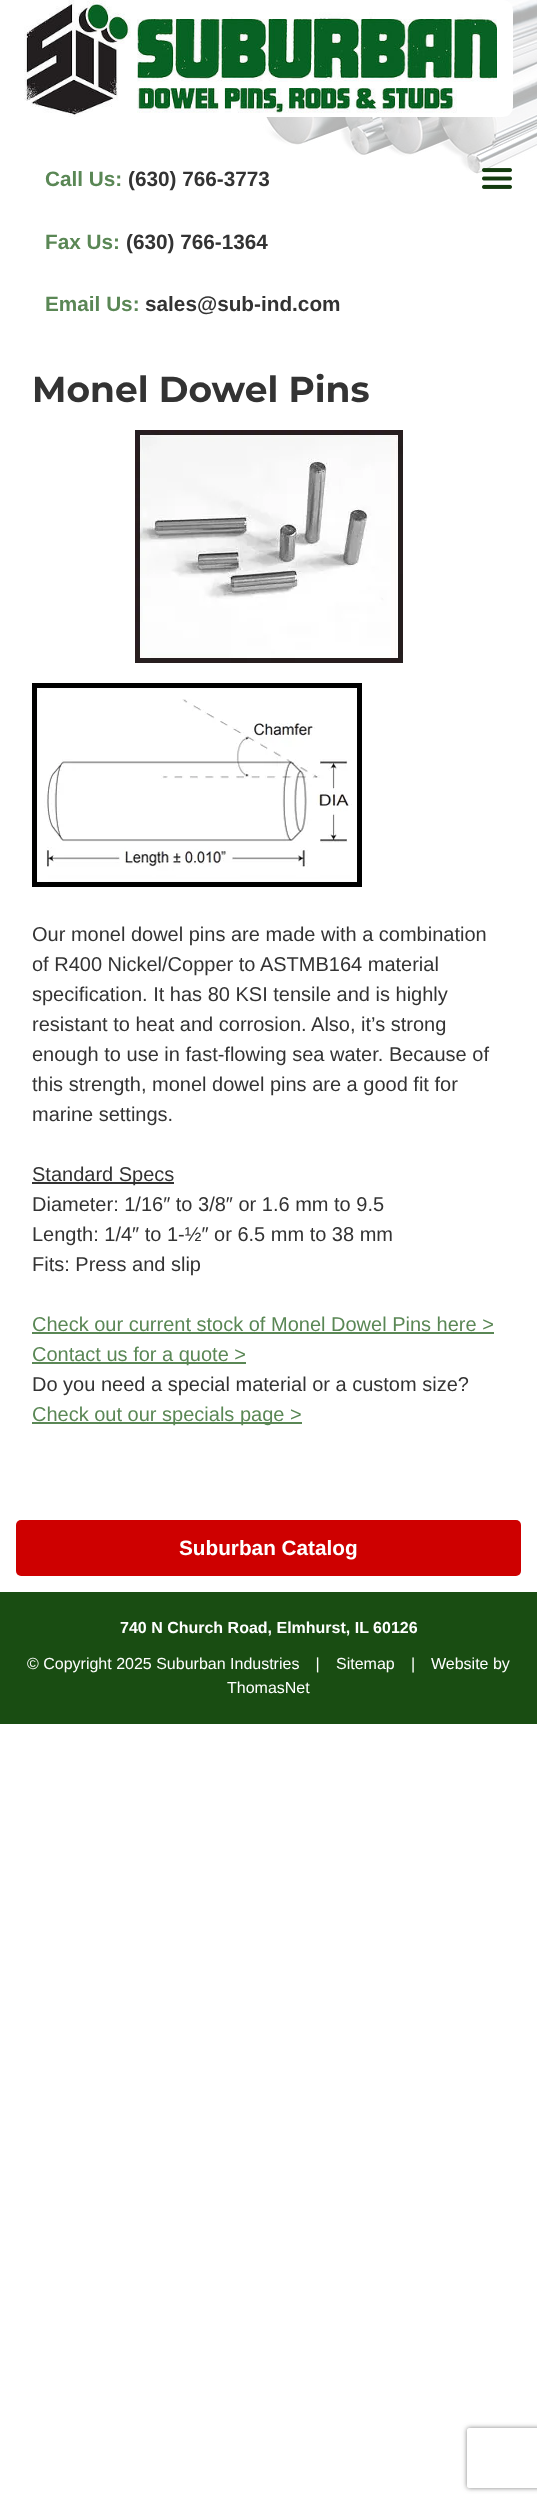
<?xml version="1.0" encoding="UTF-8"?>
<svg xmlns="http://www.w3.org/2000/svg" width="537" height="2502">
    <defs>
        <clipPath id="clip1"><path d="M 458 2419 H 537 V 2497 H 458 Z M 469 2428 H 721 C 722 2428 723 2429 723 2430 V 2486 C 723 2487 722 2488 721 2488 H 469 C 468 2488 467 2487 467 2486 V 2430 C 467 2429 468 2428 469 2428 Z" clip-rule="evenodd"/></clipPath>
        <filter id="blur1" x="-50%" y="-200%" width="200%" height="500%"><feGaussianBlur stdDeviation="2.5"/></filter>
    </defs>
    <rect width="100%" height="100%" fill="#FFFFFF"/>
    <image x="256" y="0" width="281" height="174" href="img_02.png"/>
    <rect x="24" y="0" width="489" height="117" rx="10" fill="#FFFFFF"/>
    <image x="24" y="0" width="473" height="117" href="img_01.png"/>
    <text x="45" y="186" font-family="Liberation Sans" font-size="20.75" font-weight="700" fill="#5A8755">Call Us:</text>
    <text x="128" y="186" font-family="Liberation Sans" font-size="20.75" font-weight="700" fill="#333333">(630) 766-3773</text>
    <image x="482" y="168" width="30" height="21" href="img_03.png"/>
    <text x="45" y="249" font-family="Liberation Sans" font-size="20.75" font-weight="700" fill="#5A8755">Fax Us:</text>
    <text x="126" y="249" font-family="Liberation Sans" font-size="20.75" font-weight="700" fill="#333333">(630) 766-1364</text>
    <text x="45" y="311" font-family="Liberation Sans" font-size="20.75" font-weight="700" fill="#5A8755">Email Us:</text>
    <text x="145" y="311" font-family="Liberation Sans" font-size="20.75" font-weight="700" fill="#333333">sales@sub-ind.com</text>
    <text x="32" y="402" font-family="Montserrat" font-size="36" font-weight="700" fill="#333333">Monel Dowel Pins</text>
    <image x="135" y="430" width="268" height="233" href="img_04.png"/>
    <image x="32" y="683" width="330" height="204" href="img_05.png"/>
    <text font-family="Liberation Sans" font-size="20" fill="#333333">
        <tspan x="32" y="941">Our monel dowel pins are made with a combination</tspan>
        <tspan x="32" y="971">of R400 Nickel/Copper to ASTMB164 material</tspan>
        <tspan x="32" y="1001">specification. It has 80 KSI tensile and is highly</tspan>
        <tspan x="32" y="1031">resistant to heat and corrosion. Also, it’s strong</tspan>
        <tspan x="32" y="1061">enough to use in fast-flowing sea water. Because of</tspan>
        <tspan x="32" y="1091">this strength, monel dowel pins are a good fit for</tspan>
        <tspan x="32" y="1121">marine settings.</tspan>
    </text>
    <rect x="32" y="1182" width="142" height="2" fill="#333333"/>
    <text font-family="Liberation Sans" font-size="20" fill="#333333">
        <tspan x="32" y="1181">Standard Specs</tspan>
        <tspan x="32" y="1211">Diameter: 1/16″ to 3/8″ or 1.6 mm to 9.5</tspan>
        <tspan x="32" y="1241">Length: 1/4″ to 1-½″ or 6.5 mm to 38 mm</tspan>
        <tspan x="32" y="1271">Fits: Press and slip</tspan>
    </text>
    <text x="32" y="1331" font-family="Liberation Sans" font-size="20" fill="#5A8755">Check our current stock of Monel Dowel Pins here &gt;</text>
    <rect x="32" y="1332" width="462" height="2" fill="#5A8755"/>
    <rect x="32" y="1362" width="214" height="2" fill="#5A8755"/>
    <text x="32" y="1361" font-family="Liberation Sans" font-size="20" fill="#5A8755">Contact us for a quote &gt;</text>
    <text x="32" y="1391" font-family="Liberation Sans" font-size="20" fill="#333333">Do you need a special material or a custom size?</text>
    <rect x="32" y="1422" width="270" height="2" fill="#5A8755"/>
    <text x="32" y="1421" font-family="Liberation Sans" font-size="20" fill="#5A8755">Check out our specials page &gt;</text>
    <rect x="16" y="1520" width="505" height="56" rx="5" fill="#CE0000"/>
    <text x="179" y="1555" font-family="Liberation Sans" font-size="20.75" font-weight="700" fill="#FFFFFF">Suburban Catalog</text>
    <rect x="0" y="1592" width="537" height="132" fill="#194D12"/>
    <text x="120" y="1633" font-family="Liberation Sans" font-size="16" font-weight="700" fill="#FFFFFF">740 N Church Road, Elmhurst, IL 60126</text>
    <text x="27" y="1669" font-family="Liberation Sans" font-size="16" fill="#FFFFFF">© Copyright 2025 Suburban Industries |</text>
    <text x="336" y="1669" font-family="Liberation Sans" font-size="16" fill="#FFFFFF">Sitemap</text>
    <text x="411" y="1669" font-family="Liberation Sans" font-size="16" fill="#FFFFFF">|</text>
    <text x="431" y="1669" font-family="Liberation Sans" font-size="16" fill="#FFFFFF">Website by</text>
    <text x="227" y="1693" font-family="Liberation Sans" font-size="16" fill="#FFFFFF">ThomasNet</text>
    <g clip-path="url(#clip1)">
        <rect x="467" y="2428" width="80" height="60" rx="2" fill="#808080" filter="url(#blur1)"/>
    </g>
</svg>
